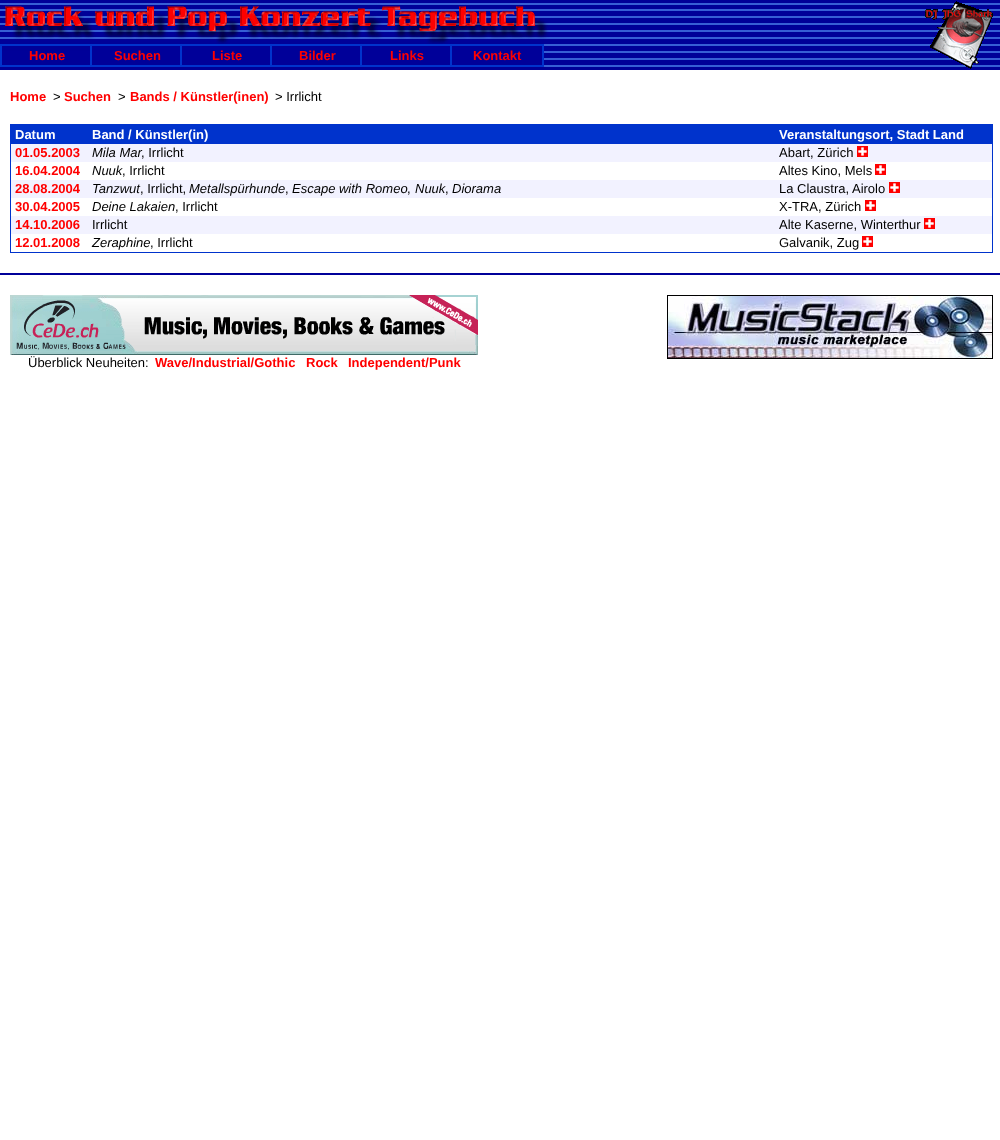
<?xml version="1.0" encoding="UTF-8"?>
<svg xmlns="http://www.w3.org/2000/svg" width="1000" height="1140">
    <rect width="100%" height="100%" fill="#FFFFFF"/>
    <image x="0" y="0" width="1000" height="70" href="img_01.png"/>
    <image x="925" y="1" width="68" height="68" href="img_02.png"/>
    <rect x="2" y="51" width="88" height="9" fill="#000099"/>
    <rect x="1" y="45" width="92" height="21" fill="none" stroke="#0033CC" stroke-width="2"/>
    <text x="29" y="60" font-family="Liberation Sans" font-size="13" font-weight="700" fill="#FF0000">Home</text>
    <rect x="92" y="46" width="88" height="19" fill="#000099"/>
    <rect x="91" y="45" width="92" height="21" fill="none" stroke="#0033CC" stroke-width="2"/>
    <text x="114" y="60" font-family="Liberation Sans" font-size="13" font-weight="700" fill="#FF0000">Suchen</text>
    <rect x="182" y="46" width="88" height="19" fill="#000099"/>
    <rect x="181" y="45" width="92" height="21" fill="none" stroke="#0033CC" stroke-width="2"/>
    <text x="212" y="60" font-family="Liberation Sans" font-size="13" font-weight="700" fill="#FF0000">Liste</text>
    <rect x="272" y="46" width="88" height="19" fill="#000099"/>
    <rect x="271" y="45" width="92" height="21" fill="none" stroke="#0033CC" stroke-width="2"/>
    <text x="299" y="60" font-family="Liberation Sans" font-size="13" font-weight="700" fill="#FF0000">Bilder</text>
    <rect x="362" y="46" width="88" height="19" fill="#000099"/>
    <rect x="361" y="45" width="92" height="21" fill="none" stroke="#0033CC" stroke-width="2"/>
    <text x="390" y="60" font-family="Liberation Sans" font-size="13" font-weight="700" fill="#FF0000">Links</text>
    <rect x="451" y="45" width="92" height="21" fill="#000099" stroke="#0033CC" stroke-width="2"/>
    <text x="473" y="60" font-family="Liberation Sans" font-size="13" font-weight="700" fill="#FF0000">Kontakt</text>
    <text x="10" y="101" font-family="Liberation Sans" font-size="13" font-weight="700" fill="#FF0000">Home</text>
    <text x="53" y="101" font-family="Liberation Sans" font-size="13" fill="#000000">&gt;</text>
    <text x="64" y="101" font-family="Liberation Sans" font-size="13" font-weight="700" fill="#FF0000">Suchen</text>
    <text x="118" y="101" font-family="Liberation Sans" font-size="13" fill="#000000">&gt;</text>
    <text x="130" y="101" font-family="Liberation Sans" font-size="13" font-weight="700" fill="#FF0000">Bands / Künstler(inen)</text>
    <text x="275" y="101" font-family="Liberation Sans" font-size="13" fill="#000000">&gt; Irrlicht</text>
    <rect x="10.5" y="124.5" width="982" height="128" fill="none" stroke="#0033CC"/>
    <rect x="11" y="125" width="981" height="19" fill="#0033CC"/>
    <text x="15" y="139" font-family="Liberation Sans" font-size="13" font-weight="700" fill="#FFFFFF">Datum</text>
    <text x="92" y="139" font-family="Liberation Sans" font-size="13" font-weight="700" fill="#FFFFFF">Band / Künstler(in)</text>
    <text x="779" y="139" font-family="Liberation Sans" font-size="13" font-weight="700" fill="#FFFFFF">Veranstaltungsort, Stadt Land</text>
    <rect x="11" y="144" width="981" height="18" fill="#F2F2FF"/>
    <text x="15" y="157" font-family="Liberation Sans" font-size="13" font-weight="700" fill="#FF0000">01.05.2003</text>
    <text x="92" y="157" font-family="Liberation Sans" font-size="13" font-style="italic" fill="#000000">Mila Mar</text>
    <text x="141" y="157" font-family="Liberation Sans" font-size="13" fill="#000000">, Irrlicht</text>
    <text x="779" y="157" font-family="Liberation Sans" font-size="13" fill="#000000">Abart, Zürich</text>
    <image x="857" y="146" width="11" height="11" href="img_03.png"/>
    <text x="15" y="175" font-family="Liberation Sans" font-size="13" font-weight="700" fill="#FF0000">16.04.2004</text>
    <text x="92" y="175" font-family="Liberation Sans" font-size="13" font-style="italic" fill="#000000">Nuuk</text>
    <text x="122" y="175" font-family="Liberation Sans" font-size="13" fill="#000000">, Irrlicht</text>
    <text x="779" y="175" font-family="Liberation Sans" font-size="13" fill="#000000">Altes Kino, Mels</text>
    <image x="875" y="164" width="11" height="11" href="img_03.png"/>
    <rect x="11" y="180" width="981" height="18" fill="#F2F2FF"/>
    <text x="15" y="193" font-family="Liberation Sans" font-size="13" font-weight="700" fill="#FF0000">28.08.2004</text>
    <text x="92" y="193" font-family="Liberation Sans" font-size="13" font-style="italic" fill="#000000">Tanzwut</text>
    <text x="140" y="193" font-family="Liberation Sans" font-size="13" fill="#000000">, Irrlicht,</text>
    <text x="189" y="193" font-family="Liberation Sans" font-size="13" font-style="italic" fill="#000000">Metallspürhunde</text>
    <text x="285" y="193" font-family="Liberation Sans" font-size="13" fill="#000000">,</text>
    <text x="292" y="193" font-family="Liberation Sans" font-size="13" font-style="italic" fill="#000000">Escape with Romeo</text>
    <text x="407" y="193" font-family="Liberation Sans" font-size="13" fill="#000000">,</text>
    <text x="415" y="193" font-family="Liberation Sans" font-size="13" font-style="italic" fill="#000000">Nuuk</text>
    <text x="445" y="193" font-family="Liberation Sans" font-size="13" fill="#000000">,</text>
    <text x="452" y="193" font-family="Liberation Sans" font-size="13" font-style="italic" fill="#000000">Diorama</text>
    <text x="779" y="193" font-family="Liberation Sans" font-size="13" fill="#000000">La Claustra, Airolo</text>
    <image x="889" y="182" width="11" height="11" href="img_03.png"/>
    <text x="15" y="211" font-family="Liberation Sans" font-size="13" font-weight="700" fill="#FF0000">30.04.2005</text>
    <text x="92" y="211" font-family="Liberation Sans" font-size="13" font-style="italic" fill="#000000">Deine Lakaien</text>
    <text x="175" y="211" font-family="Liberation Sans" font-size="13" fill="#000000">, Irrlicht</text>
    <text x="779" y="211" font-family="Liberation Sans" font-size="13" fill="#000000">X-TRA, Zürich</text>
    <image x="865" y="200" width="11" height="11" href="img_03.png"/>
    <rect x="11" y="216" width="981" height="18" fill="#F2F2FF"/>
    <text x="15" y="229" font-family="Liberation Sans" font-size="13" font-weight="700" fill="#FF0000">14.10.2006</text>
    <text x="92" y="229" font-family="Liberation Sans" font-size="13" fill="#000000">Irrlicht</text>
    <text x="779" y="229" font-family="Liberation Sans" font-size="13" fill="#000000">Alte Kaserne, Winterthur</text>
    <image x="924" y="218" width="11" height="11" href="img_03.png"/>
    <text x="15" y="247" font-family="Liberation Sans" font-size="13" font-weight="700" fill="#FF0000">12.01.2008</text>
    <text x="92" y="247" font-family="Liberation Sans" font-size="13" font-style="italic" fill="#000000">Zeraphine</text>
    <text x="150" y="247" font-family="Liberation Sans" font-size="13" fill="#000000">, Irrlicht</text>
    <text x="779" y="247" font-family="Liberation Sans" font-size="13" fill="#000000">Galvanik, Zug</text>
    <image x="862" y="236" width="11" height="11" href="img_03.png"/>
    <rect x="0" y="273" width="1000" height="2" fill="#000099"/>
    <rect x="667.5" y="295.5" width="325" height="63" fill="none" stroke="#000000"/>
    <image x="668" y="296" width="324" height="62" href="img_04.png"/>
    <image x="10" y="295" width="468" height="60" href="img_05.png"/>
    <text x="28" y="367" font-family="Liberation Sans" font-size="13" fill="#000000">Überblick Neuheiten:</text>
    <text x="155" y="367" font-family="Liberation Sans" font-size="13" font-weight="700" fill="#FF0000">Wave/Industrial/Gothic</text>
    <text x="306" y="367" font-family="Liberation Sans" font-size="13" font-weight="700" fill="#FF0000">Rock</text>
    <text x="348" y="367" font-family="Liberation Sans" font-size="13" font-weight="700" fill="#FF0000">Independent/Punk</text>
</svg>
